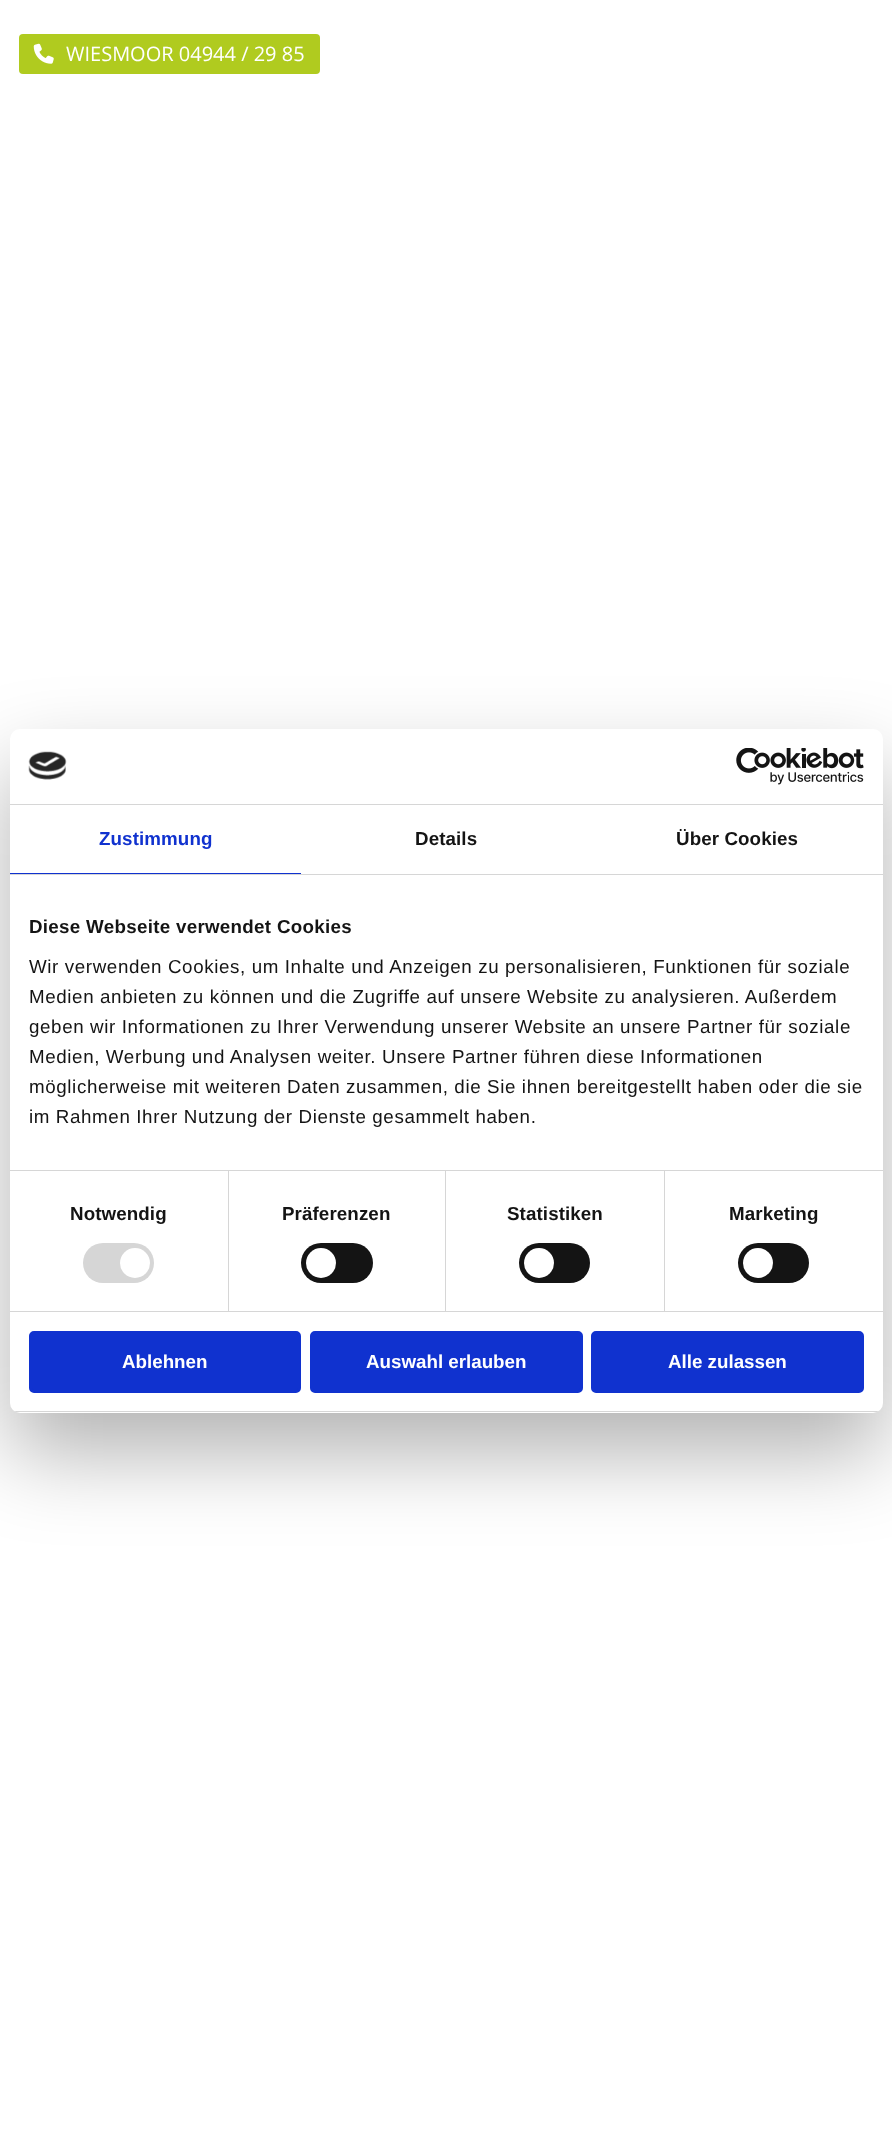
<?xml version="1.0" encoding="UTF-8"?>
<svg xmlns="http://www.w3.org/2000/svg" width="892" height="2140">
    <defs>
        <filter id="blur1" x="-50%" y="-200%" width="200%" height="500%"><feGaussianBlur stdDeviation="42.5"/></filter>
        <clipPath id="clip1"><rect x="10" y="729" width="873" height="684" rx="10"/></clipPath>
    </defs>
    <rect width="100%" height="100%" fill="#FFFFFF"/>
    <rect x="19" y="34" width="301" height="40" rx="4" fill="#B0CB1F"/>
    <image x="33" y="43" width="21" height="21" href="img_01.png"/>
    <text x="66" y="61" font-family="Open Sans" font-size="20" fill="#FFFFFF">WIESMOOR 04944 / 29 85</text>
    <rect x="10" y="769" width="873" height="684" rx="10" fill="#000000" fill-opacity="0.3" filter="url(#blur1)"/>
    <rect x="10" y="729" width="873" height="684" rx="10" fill="#FFFFFF"/>
    <rect x="10" y="804" width="873" height="1" fill="#D6D6D6"/>
    <image x="28" y="751" width="39" height="29" href="img_02.png"/>
    <image x="736" y="748" width="128" height="37" href="img_03.png"/>
    <rect x="10" y="874" width="873" height="1" fill="#D6D6D6"/>
    <rect x="10" y="873" width="291" height="1" fill="#1032CF"/>
    <text x="99" y="845" font-family="Liberation Sans" font-size="18.75" font-weight="700" letter-spacing="0.1" fill="#1032CF">Zustimmung</text>
    <text x="415" y="845" font-family="Liberation Sans" font-size="18.75" font-weight="700" letter-spacing="0.1" fill="#141414">Details</text>
    <text x="676" y="845" font-family="Liberation Sans" font-size="18.75" font-weight="700" letter-spacing="0.1" fill="#141414">Über Cookies</text>
    <rect x="10" y="1170" width="873" height="1" fill="#D6D6D6"/>
    <text x="29" y="933" font-family="Liberation Sans" font-size="18.75" font-weight="700" letter-spacing="0.3" fill="#141414">Diese Webseite verwendet Cookies</text>
    <text font-family="Liberation Sans" font-size="18.75" letter-spacing="0.62" fill="#141414">
        <tspan x="29" y="973">Wir verwenden Cookies, um Inhalte und Anzeigen zu personalisieren, Funktionen für soziale</tspan>
        <tspan x="29" y="1003">Medien anbieten zu können und die Zugriffe auf unsere Website zu analysieren. Außerdem</tspan>
        <tspan x="29" y="1033">geben wir Informationen zu Ihrer Verwendung unserer Website an unsere Partner für soziale</tspan>
        <tspan x="29" y="1063">Medien, Werbung und Analysen weiter. Unsere Partner führen diese Informationen</tspan>
        <tspan x="29" y="1093">möglicherweise mit weiteren Daten zusammen, die Sie ihnen bereitgestellt haben oder die sie</tspan>
        <tspan x="29" y="1123">im Rahmen Ihrer Nutzung der Dienste gesammelt haben.</tspan>
    </text>
    <rect x="10" y="1311" width="873" height="1" fill="#D6D6D6"/>
    <rect x="228" y="1171" width="1" height="140" fill="#D6D6D6"/>
    <text x="70" y="1220" font-family="Liberation Sans" font-size="18.75" font-weight="700" letter-spacing="0.1" fill="#141414">Notwendig</text>
    <rect x="83" y="1243" width="71" height="40" rx="20" fill="#D6D6D6"/>
    <circle cx="135" cy="1263" r="15" fill="#FFFFFF"/>
    <rect x="445" y="1171" width="1" height="140" fill="#D6D6D6"/>
    <text x="282" y="1220" font-family="Liberation Sans" font-size="18.75" font-weight="700" letter-spacing="0.1" fill="#141414">Präferenzen</text>
    <rect x="301" y="1243" width="72" height="40" rx="20" fill="#141414"/>
    <circle cx="321" cy="1263" r="15" fill="#FFFFFF"/>
    <rect x="664" y="1171" width="1" height="140" fill="#D6D6D6"/>
    <text x="507" y="1220" font-family="Liberation Sans" font-size="18.75" font-weight="700" letter-spacing="0.1" fill="#141414">Statistiken</text>
    <rect x="519" y="1243" width="71" height="40" rx="20" fill="#141414"/>
    <circle cx="539" cy="1263" r="15" fill="#FFFFFF"/>
    <text x="729" y="1220" font-family="Liberation Sans" font-size="18.75" font-weight="700" letter-spacing="0.1" fill="#141414">Marketing</text>
    <rect x="738" y="1243" width="71" height="40" rx="20" fill="#141414"/>
    <circle cx="758" cy="1263" r="15" fill="#FFFFFF"/>
    <g clip-path="url(#clip1)">
        <rect x="10" y="1411" width="873" height="1" fill="#D6D6D6"/>
    </g>
    <rect x="30.5" y="1332.5" width="269" height="59" rx="3.5" fill="#1032CF" stroke="#1032CF" stroke-width="3"/>
    <text x="122" y="1368" font-family="Liberation Sans" font-size="18.75" font-weight="700" fill="#FFFFFF">Ablehnen</text>
    <rect x="311.5" y="1332.5" width="270" height="59" rx="3.5" fill="#1032CF" stroke="#1032CF" stroke-width="3"/>
    <text x="366" y="1368" font-family="Liberation Sans" font-size="18.75" font-weight="700" fill="#FFFFFF">Auswahl erlauben</text>
    <rect x="592.5" y="1332.5" width="270" height="59" rx="3.5" fill="#1032CF" stroke="#1032CF" stroke-width="3"/>
    <text x="668" y="1368" font-family="Liberation Sans" font-size="18.75" font-weight="700" fill="#FFFFFF">Alle zulassen</text>
</svg>
